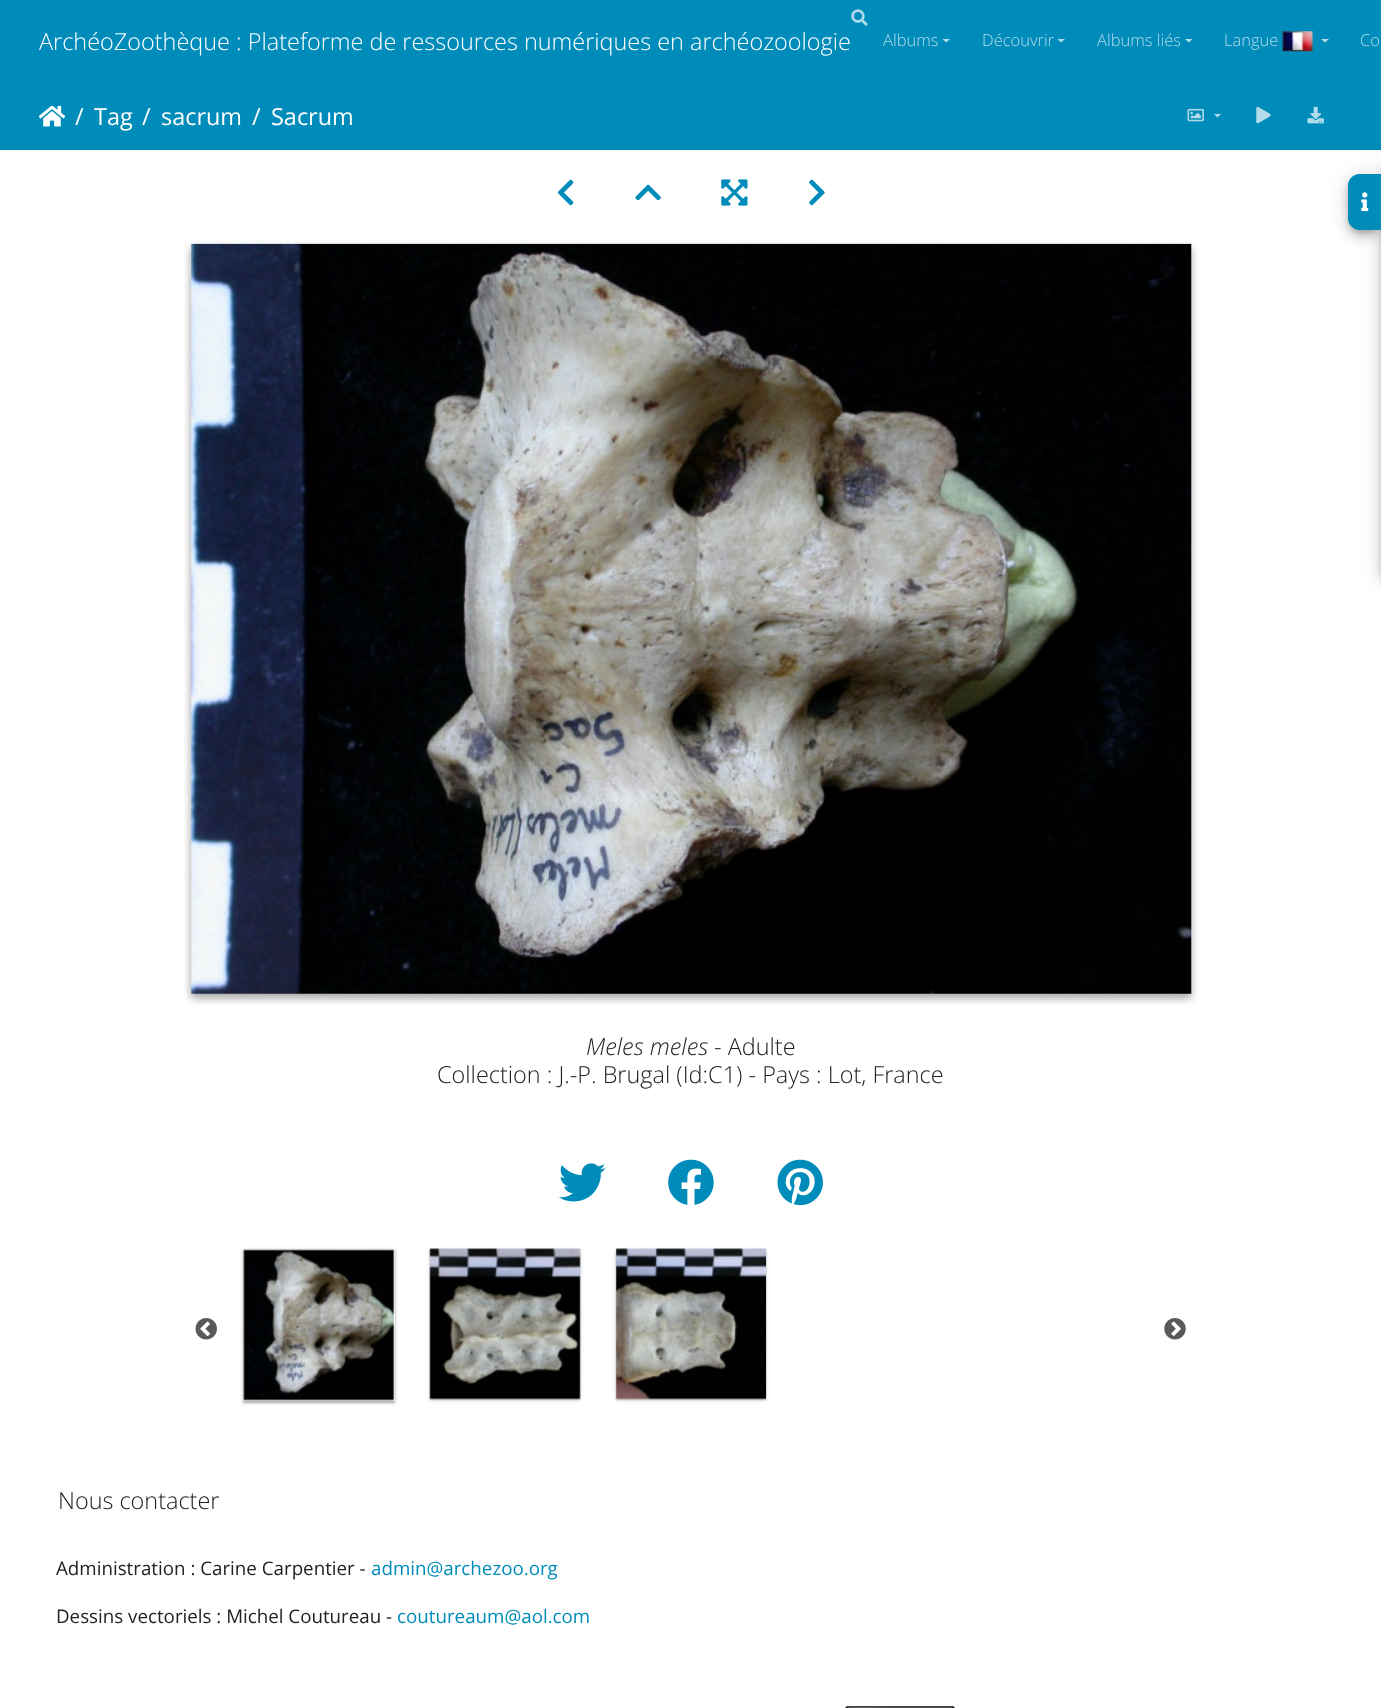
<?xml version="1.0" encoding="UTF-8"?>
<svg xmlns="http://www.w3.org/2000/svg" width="1381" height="1708">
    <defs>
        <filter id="blur1" x="-50%" y="-200%" width="200%" height="500%"><feGaussianBlur stdDeviation="11"/></filter>
        <filter id="blur2" x="-50%" y="-200%" width="200%" height="500%"><feGaussianBlur stdDeviation="3"/></filter>
        <filter id="blur3" x="-50%" y="-200%" width="200%" height="500%"><feGaussianBlur stdDeviation="6"/></filter>
        <filter id="blur4" x="-50%" y="-200%" width="200%" height="500%"><feGaussianBlur stdDeviation="4"/></filter>
        <clipPath id="clip1"><path d="M 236 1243 H 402 V 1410 H 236 Z M 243 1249 H 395 V 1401 H 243 Z" clip-rule="evenodd"/></clipPath>
        <filter id="blur5" x="-50%" y="-200%" width="200%" height="500%"><feGaussianBlur stdDeviation="2"/></filter>
        <clipPath id="clip2"><path d="M 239 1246 H 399 V 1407 H 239 Z M 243 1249 H 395 V 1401 H 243 Z" clip-rule="evenodd"/></clipPath>
        <filter id="blur6" x="-50%" y="-200%" width="200%" height="500%"><feGaussianBlur stdDeviation="1"/></filter>
    </defs>
    <rect width="100%" height="100%" fill="#FFFFFF"/>
    <rect x="1381" y="163" width="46" height="417" rx="13" fill="#000000" fill-opacity="0.12" filter="url(#blur1)"/>
    <rect x="1348" y="175" width="33" height="56" rx="13" fill="#000000" fill-opacity="0.12" filter="url(#blur1)"/>
    <rect x="0" y="0" width="1381" height="150" fill="#008CBA"/>
    <text x="39" y="50" font-family="Open Sans" font-size="23.45" font-weight="300" fill="#FFFFFF">ArchéoZoothèque : Plateforme de ressources numériques en archéozoologie</text>
    <image x="851" y="9" width="17" height="17" href="img_01.png"/>
    <text x="883" y="46" font-family="Open Sans" font-size="16.5" font-weight="300" fill="#B3DDEA">Albums</text>
    <path d="M 942.5 39 H 950 L 946 42.5 Z" fill="#B3DDEA"/>
    <text x="982" y="46" font-family="Open Sans" font-size="16.5" font-weight="300" fill="#B3DDEA">Découvrir</text>
    <path d="M 1057.5 39 H 1065 L 1061 42.5 Z" fill="#B3DDEA"/>
    <text x="1097" y="46" font-family="Open Sans" font-size="16.5" font-weight="300" fill="#B3DDEA">Albums liés</text>
    <path d="M 1185 39 H 1192.5 L 1189 42.5 Z" fill="#B3DDEA"/>
    <text x="1224" y="46" font-family="Open Sans" font-size="16.5" font-weight="300" fill="#B3DDEA">Langue</text>
    <image x="1282" y="31" width="31" height="21" href="img_02.png"/>
    <path d="M 1321 39 H 1329 L 1325 42.5 Z" fill="#B3DDEA"/>
    <text x="1360" y="46" font-family="Open Sans" font-size="16.5" font-weight="300" fill="#B3DDEA">Co</text>
    <image x="39" y="105" width="26" height="22" href="img_03.png"/>
    <text x="75" y="125" font-family="Open Sans" font-size="23.45" fill="#FFFFFF">/</text>
    <text x="94" y="125" font-family="Open Sans" font-size="23.45" fill="#FFFFFF">Tag</text>
    <text x="142" y="125" font-family="Open Sans" font-size="23.45" fill="#FFFFFF">/</text>
    <text x="161" y="125" font-family="Open Sans" font-size="23.45" fill="#FFFFFF">sacrum</text>
    <text x="252" y="125" font-family="Open Sans" font-size="23.45" fill="#FFFFFF">/</text>
    <text x="271" y="125" font-family="Open Sans" font-size="23.45" fill="#FFFFFF">Sacrum</text>
    <image x="1187" y="108" width="17" height="14" href="img_04.png"/>
    <path d="M 1214 114 H 1221 L 1217.5 117.5 Z" fill="#B3DDEA"/>
    <image x="1256" y="106" width="15" height="18" href="img_05.png"/>
    <image x="1307" y="106" width="17" height="18" href="img_06.png"/>
    <image x="557" y="179" width="17" height="27" href="img_07.png"/>
    <image x="635" y="184" width="26" height="17" href="img_08.png"/>
    <image x="721" y="179" width="27" height="27" href="img_09.png"/>
    <image x="809" y="179" width="16" height="27" href="img_10.png"/>
    <rect x="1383" y="166" width="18" height="415" rx="11" fill="#000000" fill-opacity="0.2" filter="url(#blur2)"/>
    <rect x="1381" y="169" width="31" height="417" rx="13" fill="#000000" fill-opacity="0.14" filter="url(#blur3)"/>
    <rect x="1349" y="179" width="31" height="54" rx="11" fill="#000000" fill-opacity="0.2" filter="url(#blur2)"/>
    <rect x="1348" y="181" width="33" height="57" rx="13" fill="#000000" fill-opacity="0.14" filter="url(#blur3)"/>
    <path d="M 1361 174 H 1381 V 230 H 1361 C 1354 230 1348 224 1348 217 V 187 C 1348 180 1354 174 1361 174 Z" fill="#008CBA"/>
    <path d="M 1360 174 H 1381 V 230 H 1360 C 1353 230 1348 224 1348 218 V 186 C 1348 179 1353 174 1360 174 Z M 1360 175 H 1381 V 229 H 1360 C 1354 229 1349 224 1349 218 V 186 C 1349 180 1354 175 1360 175 Z" fill="#008CBA" fill-rule="evenodd"/>
    <image x="1361" y="192" width="8" height="20" href="img_11.png"/>
    <rect x="191" y="248" width="1000" height="750" fill="#000000" fill-opacity="0.23" filter="url(#blur4)"/>
    <rect x="191" y="248" width="1000" height="750" fill="#000000" fill-opacity="0.16" filter="url(#blur4)"/>
    <image x="191" y="243" width="1001" height="751" href="img_12.png"/>
    <text x="586" y="1055" font-family="Open Sans" font-size="23.45" font-weight="300" font-style="italic" fill="#222222">Meles meles</text>
    <text x="714" y="1055" font-family="Open Sans" font-size="23.45" font-weight="300" fill="#222222">- Adulte</text>
    <text x="437" y="1083" font-family="Open Sans" font-size="23.45" font-weight="300" fill="#222222">Collection : J.-P. Brugal (Id:C1) - Pays : Lot, France</text>
    <image x="559" y="1163" width="47" height="39" href="img_13.png"/>
    <image x="668" y="1159" width="46" height="46" href="img_14.png"/>
    <image x="777" y="1159" width="46" height="47" href="img_15.png"/>
    <image x="195" y="1318" width="22" height="22" href="img_16.png"/>
    <g clip-path="url(#clip1)">
        <rect x="243" y="1250" width="152" height="153" fill="#000000" fill-opacity="0.12" filter="url(#blur5)"/>
    </g>
    <g clip-path="url(#clip2)">
        <rect x="243" y="1250" width="152" height="153" fill="#000000" fill-opacity="0.24" filter="url(#blur6)"/>
    </g>
    <image x="243" y="1249" width="152" height="152" href="img_17.png"/>
    <rect x="430" y="1250" width="150" height="150" fill="#000000" fill-opacity="0.12" filter="url(#blur5)"/>
    <rect x="430" y="1250" width="150" height="150" fill="#000000" fill-opacity="0.24" filter="url(#blur6)"/>
    <image x="429" y="1248" width="152" height="152" href="img_18.png"/>
    <rect x="616" y="1250" width="150" height="150" fill="#000000" fill-opacity="0.12" filter="url(#blur5)"/>
    <rect x="616" y="1250" width="150" height="150" fill="#000000" fill-opacity="0.24" filter="url(#blur6)"/>
    <image x="616" y="1248" width="150" height="152" href="img_19.png"/>
    <image x="1164" y="1318" width="22" height="22" href="img_20.png"/>
    <text x="58" y="1509" font-family="Open Sans" font-size="23.45" font-weight="300" fill="#222222">Nous contacter</text>
    <text x="56" y="1575" font-family="Open Sans" font-size="18.75" fill="#222222">Administration : Carine Carpentier -</text>
    <text x="371" y="1575" font-family="Open Sans" font-size="18.75" fill="#008CBA">admin@archezoo.org</text>
    <text x="56" y="1623" font-family="Open Sans" font-size="18.75" fill="#222222">Dessins vectoriels : Michel Coutureau -</text>
    <text x="397" y="1623" font-family="Open Sans" font-size="18.75" fill="#008CBA">coutureaum@aol.com</text>
    <image x="845" y="1706" width="110" height="2" href="img_21.png"/>
</svg>
